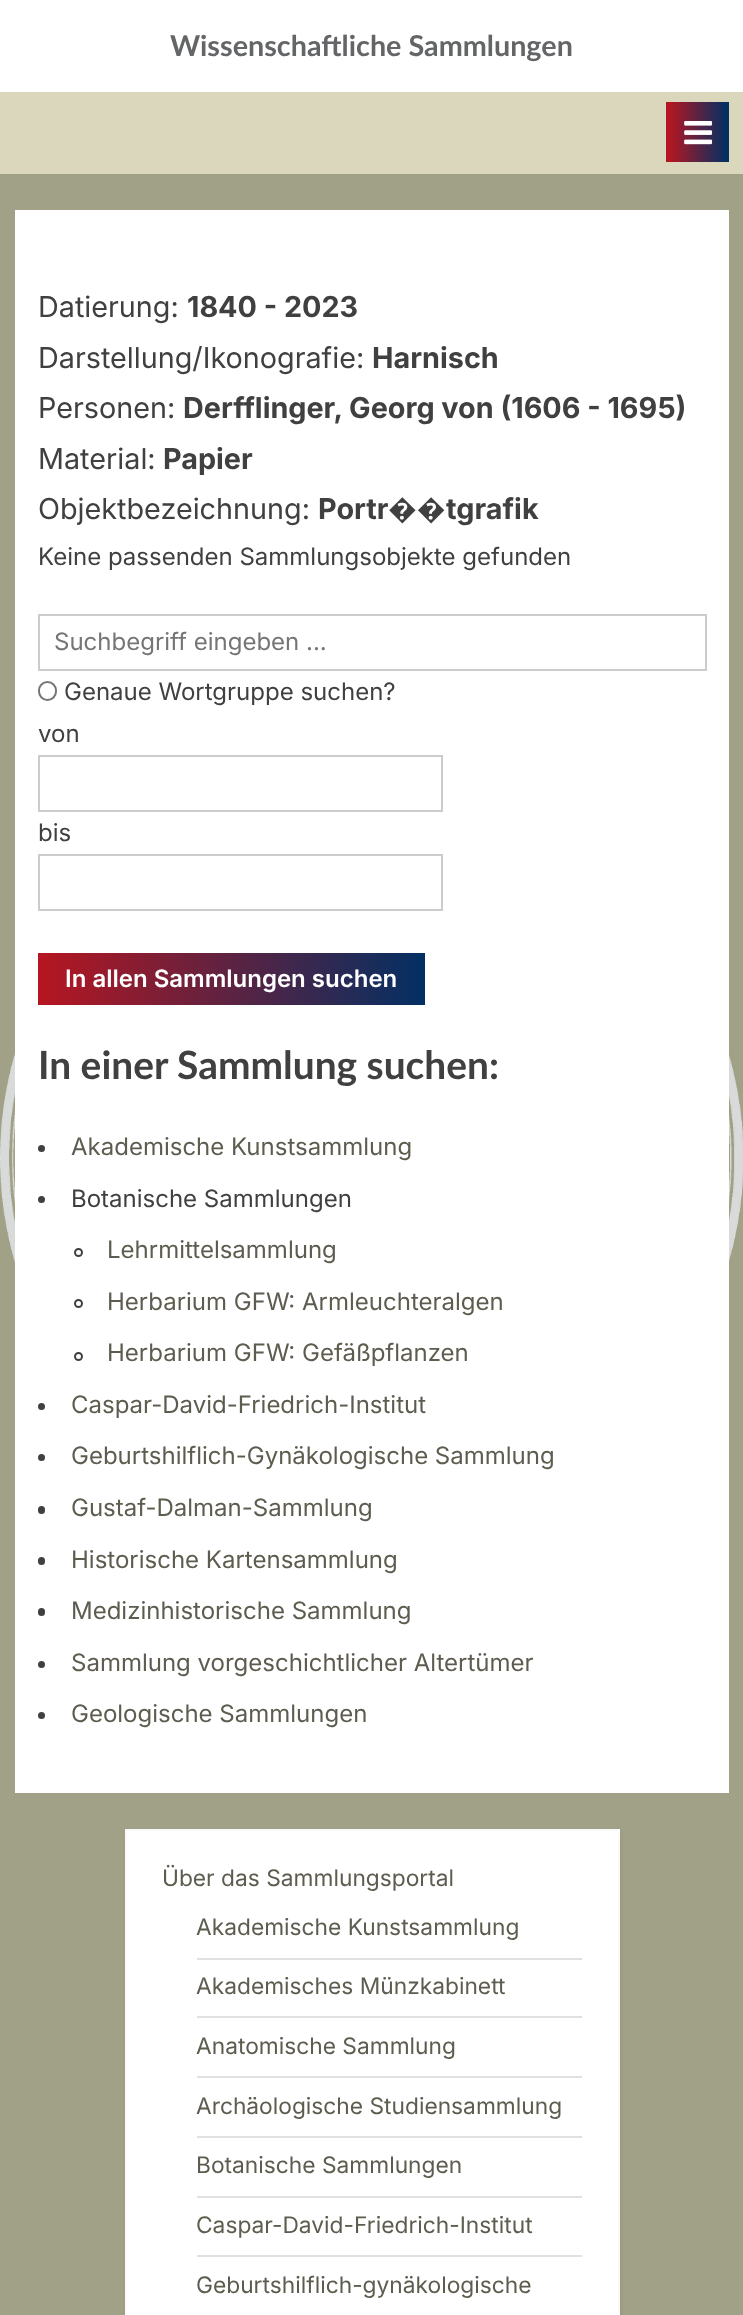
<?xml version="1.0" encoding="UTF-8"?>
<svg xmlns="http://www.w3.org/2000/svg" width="743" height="2315">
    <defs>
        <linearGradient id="g1" gradientUnits="userSpaceOnUse" x1="555" y1="132" x2="669" y2="132"><stop offset="0" stop-color="#B51621"/><stop offset="0.51" stop-color="#003064"/><stop offset="1" stop-color="#B51621"/></linearGradient>
        <linearGradient id="g2" gradientUnits="userSpaceOnUse" x1="669" y1="132" x2="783" y2="132"><stop offset="0" stop-color="#B51621"/><stop offset="0.51" stop-color="#003064"/><stop offset="1" stop-color="#B51621"/></linearGradient>
        <linearGradient id="g3" gradientUnits="userSpaceOnUse" x1="-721" y1="979" x2="41" y2="979"><stop offset="0" stop-color="#B51621"/><stop offset="0.51" stop-color="#003064"/><stop offset="1" stop-color="#B51621"/></linearGradient>
        <linearGradient id="g4" gradientUnits="userSpaceOnUse" x1="41" y1="979" x2="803" y2="979"><stop offset="0" stop-color="#B51621"/><stop offset="0.51" stop-color="#003064"/><stop offset="1" stop-color="#B51621"/></linearGradient>
        <filter id="blur1" x="-50%" y="-200%" width="200%" height="500%"><feGaussianBlur stdDeviation="2"/></filter>
    </defs>
    <rect width="100%" height="100%" fill="#A0A187"/>
    <image x="0" y="786" width="743" height="744" href="img_01.png"/>
    <rect x="0" y="0" width="743" height="92" fill="#FFFFFF"/>
    <text x="170" y="56" font-family="Lato" font-size="28.75" font-weight="700" fill="#646567">Wissenschaftliche Sammlungen</text>
    <rect x="0" y="92" width="743" height="82" fill="#DAD7BD"/>
    <rect x="666" y="102" width="3" height="60" fill="url(#g1)"/>
    <rect x="669" y="102" width="60" height="60" fill="url(#g2)"/>
    <image x="684" y="121" width="29" height="24" href="img_02.png"/>
    <rect x="15" y="210" width="714" height="1583" fill="#FFFFFF"/>
    <text x="38" y="317" font-family="Inter" font-size="28.75" fill="#404040">Datierung:</text>
    <text x="187" y="317" font-family="Inter" font-size="28.75" font-weight="700" fill="#404040">1840 - 2023</text>
    <text x="38" y="368" font-family="Inter" font-size="28.75" fill="#404040">Darstellung/Ikonografie:</text>
    <text x="372" y="368" font-family="Inter" font-size="28.75" font-weight="700" fill="#404040">Harnisch</text>
    <text x="38" y="418" font-family="Inter" font-size="28.75" fill="#404040">Personen:</text>
    <text x="183" y="418" font-family="Inter" font-size="28.75" font-weight="700" fill="#404040">Derfflinger, Georg von (1606 - 1695)</text>
    <text x="38" y="469" font-family="Inter" font-size="28.75" fill="#404040">Material:</text>
    <text x="163" y="469" font-family="Inter" font-size="28.75" font-weight="700" fill="#404040">Papier</text>
    <text x="38" y="519" font-family="Inter" font-size="28.75" fill="#404040">Objektbezeichnung:</text>
    <text x="318" y="519" font-family="Inter" font-size="28.75" font-weight="700" fill="#404040">Portr</text>
    <text x="388" y="519" font-family="Noto Sans" font-size="28.75" font-weight="700" fill="#404040">��</text>
    <text x="446" y="519" font-family="Inter" font-size="28.75" font-weight="700" fill="#404040">tgrafik</text>
    <text x="38" y="565" font-family="Inter" font-size="24" fill="#404040">Keine passenden Sammlungsobjekte gefunden</text>
    <rect x="39" y="615" width="667" height="55" fill="none" stroke="#CCCCCC" stroke-width="2"/>
    <text x="54" y="650" font-family="Inter" font-size="24" fill="#757575">Suchbegriff eingeben ...</text>
    <rect x="39" y="682" width="17" height="18" rx="8.5" fill="none" stroke="#767676" stroke-width="2"/>
    <text x="64" y="700" font-family="Inter" font-size="24" fill="#404040">Genaue Wortgruppe suchen?</text>
    <text x="38" y="742" font-family="Inter" font-size="24" fill="#404040">von</text>
    <rect x="39" y="756" width="403" height="55" fill="none" stroke="#CCCCCC" stroke-width="2"/>
    <text x="38" y="841" font-family="Inter" font-size="24" fill="#404040">bis</text>
    <rect x="39" y="855" width="403" height="55" fill="none" stroke="#CCCCCC" stroke-width="2"/>
    <rect x="38" y="953" width="3" height="52" fill="url(#g3)"/>
    <rect x="41" y="953" width="384" height="52" fill="url(#g4)"/>
    <text x="65" y="987" font-family="Inter" font-size="24" font-weight="600" fill="#FFFFFF">In allen Sammlungen suchen</text>
    <text x="38" y="1079" font-family="Lato" font-size="38.9" font-weight="700" fill="#404040">In einer Sammlung suchen:</text>
    <circle cx="41.5" cy="1148.5" r="3.5" fill="#404040"/>
    <text x="71" y="1155" font-family="Inter" font-size="24" fill="#5D5C4F">Akademische Kunstsammlung</text>
    <circle cx="41.5" cy="1199.5" r="3.5" fill="#404040"/>
    <text x="71" y="1207" font-family="Inter" font-size="24" fill="#404040">Botanische Sammlungen</text>
    <circle cx="78.5" cy="1252.5" r="3.5" fill="none" stroke="#404040" stroke-width="2"/>
    <text x="107" y="1258" font-family="Inter" font-size="24" fill="#5D5C4F">Lehrmittelsammlung</text>
    <circle cx="78.5" cy="1303.5" r="3.5" fill="none" stroke="#404040" stroke-width="2"/>
    <text x="107" y="1310" font-family="Inter" font-size="24" fill="#5D5C4F">Herbarium GFW: Armleuchteralgen</text>
    <circle cx="78.5" cy="1356.5" r="3.5" fill="none" stroke="#404040" stroke-width="2"/>
    <text x="107" y="1361" font-family="Inter" font-size="24" fill="#5D5C4F">Herbarium GFW: Gefäßpflanzen</text>
    <circle cx="41.5" cy="1406.5" r="3.5" fill="#404040"/>
    <text x="71" y="1413" font-family="Inter" font-size="24" fill="#5D5C4F">Caspar-David-Friedrich-Institut</text>
    <circle cx="41.5" cy="1457.5" r="3.5" fill="#404040"/>
    <text x="71" y="1464" font-family="Inter" font-size="24" fill="#5D5C4F">Geburtshilflich-Gynäkologische Sammlung</text>
    <rect x="38" y="1506" width="7" height="8" rx="3.5" fill="#404040"/>
    <text x="71" y="1516" font-family="Inter" font-size="24" fill="#5D5C4F">Gustaf-Dalman-Sammlung</text>
    <rect x="38" y="1557" width="7" height="8" rx="3.5" fill="#404040"/>
    <text x="71" y="1568" font-family="Inter" font-size="24" fill="#5D5C4F">Historische Kartensammlung</text>
    <rect x="38" y="1608" width="7" height="8" rx="3.5" fill="#404040"/>
    <text x="71" y="1619" font-family="Inter" font-size="24" fill="#5D5C4F">Medizinhistorische Sammlung</text>
    <circle cx="41.5" cy="1664.5" r="3.5" fill="#404040"/>
    <text x="71" y="1671" font-family="Inter" font-size="24" fill="#5D5C4F">Sammlung vorgeschichtlicher Altertümer</text>
    <circle cx="41.5" cy="1715.5" r="3.5" fill="#404040"/>
    <text x="71" y="1722" font-family="Inter" font-size="24" fill="#5D5C4F">Geologische Sammlungen</text>
    <rect x="126" y="1832" width="495" height="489" fill="#000000" fill-opacity="0.07" filter="url(#blur1)"/>
    <rect x="126" y="1830" width="493" height="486" fill="#FFFFFF" stroke="#FAFAFA" stroke-width="2"/>
    <text x="162" y="1886" font-family="Inter" font-size="22.75" fill="#5D5C4F">Über das Sammlungsportal</text>
    <rect x="197" y="1958" width="385" height="2" fill="#E1E1E1"/>
    <text x="196" y="1935" font-family="Inter" font-size="22.75" fill="#5D5C4F">Akademische Kunstsammlung</text>
    <rect x="197" y="2016" width="385" height="2" fill="#E1E1E1"/>
    <text x="196" y="1994" font-family="Inter" font-size="22.75" fill="#5D5C4F">Akademisches Münzkabinett</text>
    <rect x="197" y="2076" width="385" height="2" fill="#E1E1E1"/>
    <text x="196" y="2054" font-family="Inter" font-size="22.75" fill="#5D5C4F">Anatomische Sammlung</text>
    <rect x="197" y="2136" width="385" height="2" fill="#E1E1E1"/>
    <text x="196" y="2114" font-family="Inter" font-size="22.75" fill="#5D5C4F">Archäologische Studiensammlung</text>
    <rect x="197" y="2196" width="385" height="2" fill="#E1E1E1"/>
    <text x="196" y="2173" font-family="Inter" font-size="22.75" fill="#5D5C4F">Botanische Sammlungen</text>
    <rect x="197" y="2255" width="385" height="2" fill="#E1E1E1"/>
    <text x="196" y="2233" font-family="Inter" font-size="22.75" fill="#5D5C4F">Caspar-David-Friedrich-Institut</text>
    <text x="196" y="2293" font-family="Inter" font-size="22.75" fill="#5D5C4F">Geburtshilflich-gynäkologische</text>
</svg>
